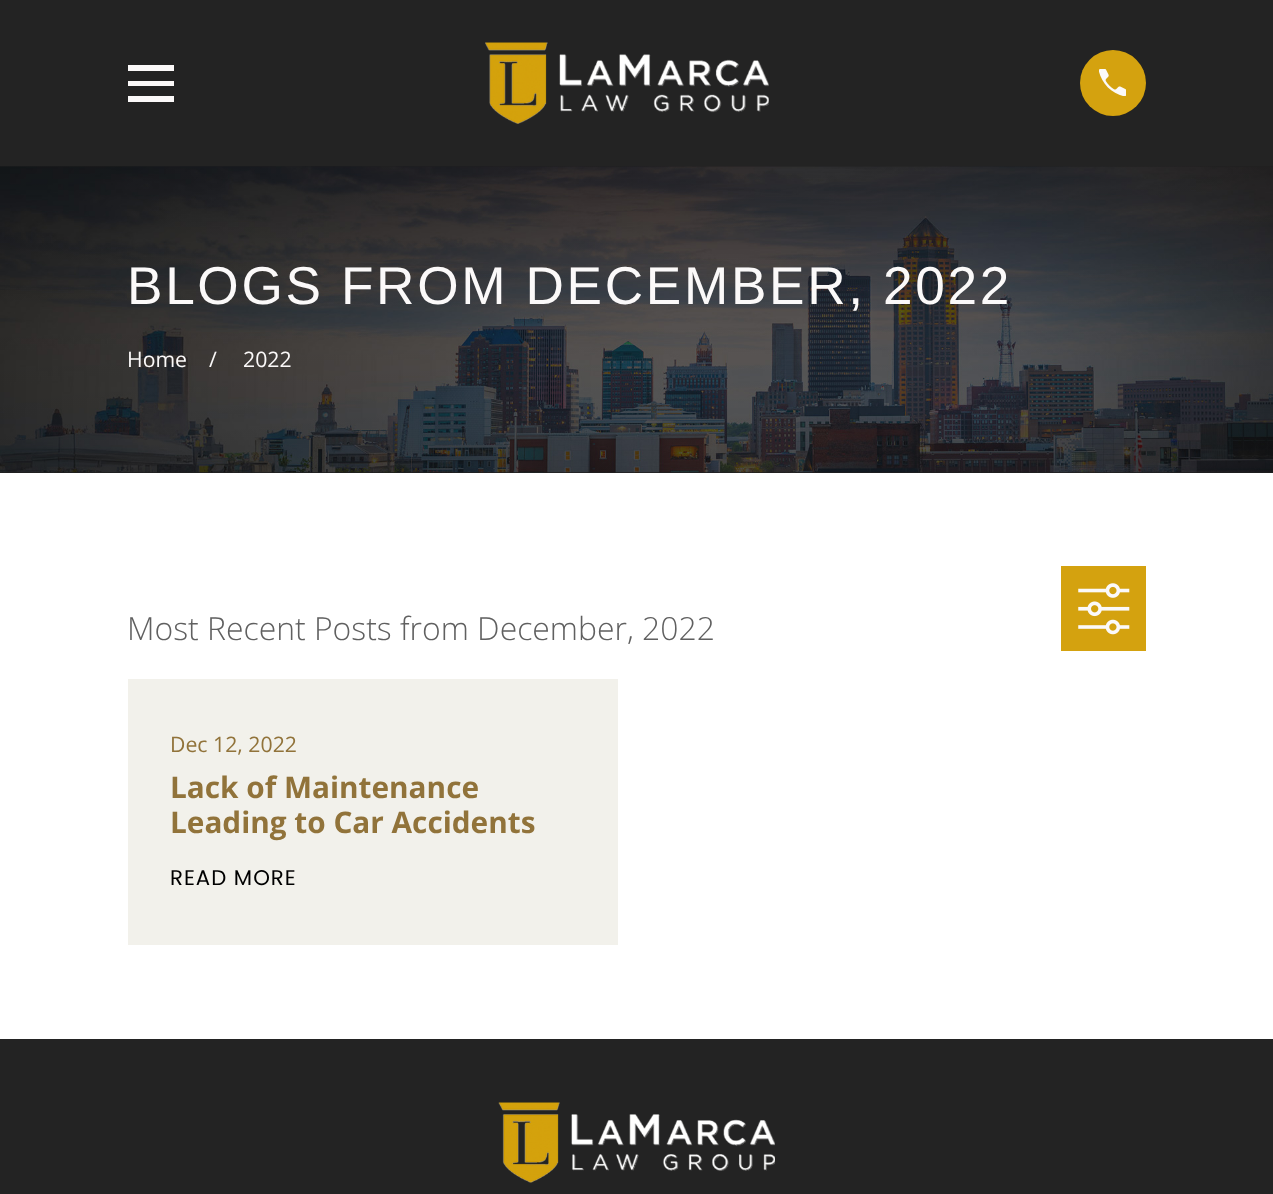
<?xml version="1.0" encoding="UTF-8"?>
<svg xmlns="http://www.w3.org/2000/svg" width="1273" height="1194">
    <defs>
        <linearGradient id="g1" gradientUnits="userSpaceOnUse" x1="637" y1="473" x2="637" y2="166"><stop offset="0" stop-color="#000000" stop-opacity="0.1"/><stop offset="0.5" stop-color="#000000" stop-opacity="0"/><stop offset="1" stop-color="#000000" stop-opacity="0.1"/></linearGradient>
    </defs>
    <rect width="100%" height="100%" fill="#FFFFFF"/>
    <rect x="0" y="0" width="1273" height="473" fill="#232323"/>
    <path d="M 128 65 V 71 H 174 V 65 Z M 128 81 V 86 H 174 V 81 Z M 128 96 V 102 H 174 V 96 Z" fill="#FBF9F9"/>
    <image x="485" y="42" width="284" height="82" href="img_01.png"/>
    <circle cx="1113" cy="83" r="33" fill="#D4A20F"/>
    <image x="1099" y="69" width="27" height="27" href="img_02.png"/>
    <image x="0" y="166" width="1273" height="307" href="img_03.png"/>
    <rect x="0" y="166" width="1273" height="307" fill="url(#g1)"/>
    <text x="127" y="304" font-family="Liberation Sans" font-size="53.2" letter-spacing="2.65" fill="#FBF9F9">BLOGS FROM DECEMBER, 2022</text>
    <text x="127" y="367" font-family="Open Sans" font-size="21.25" fill="#FBF9F9">Home</text>
    <text x="209" y="367" font-family="Open Sans" font-size="21.25" fill="#FBF9F9">/</text>
    <text x="243" y="367" font-family="Open Sans" font-size="21.25" fill="#FBF9F9">2022</text>
    <text x="127" y="640" font-family="Open Sans" font-size="31.9" font-weight="300" fill="#606060">Most Recent Posts from December, 2022</text>
    <rect x="1061" y="566" width="85" height="85" fill="#D4A20F"/>
    <image x="1078" y="583" width="52" height="52" href="img_04.png"/>
    <rect x="128" y="679" width="490" height="266" fill="#F2F1EB"/>
    <text x="170" y="752" font-family="Open Sans" font-size="21.25" fill="#91733A">Dec 12, 2022</text>
    <text font-family="Open Sans" font-size="29.75" font-weight="700" fill="#91733A">
        <tspan x="170" y="798">Lack of Maintenance</tspan>
        <tspan x="170" y="833">Leading to Car Accidents</tspan>
    </text>
    <text x="170" y="885" font-family="Poppins" font-size="21.25" letter-spacing="1" fill="#000000">READ MORE</text>
    <rect x="0" y="1039" width="1273" height="155" fill="#232323"/>
    <image x="498" y="1102" width="277" height="81" href="img_05.png"/>
</svg>
